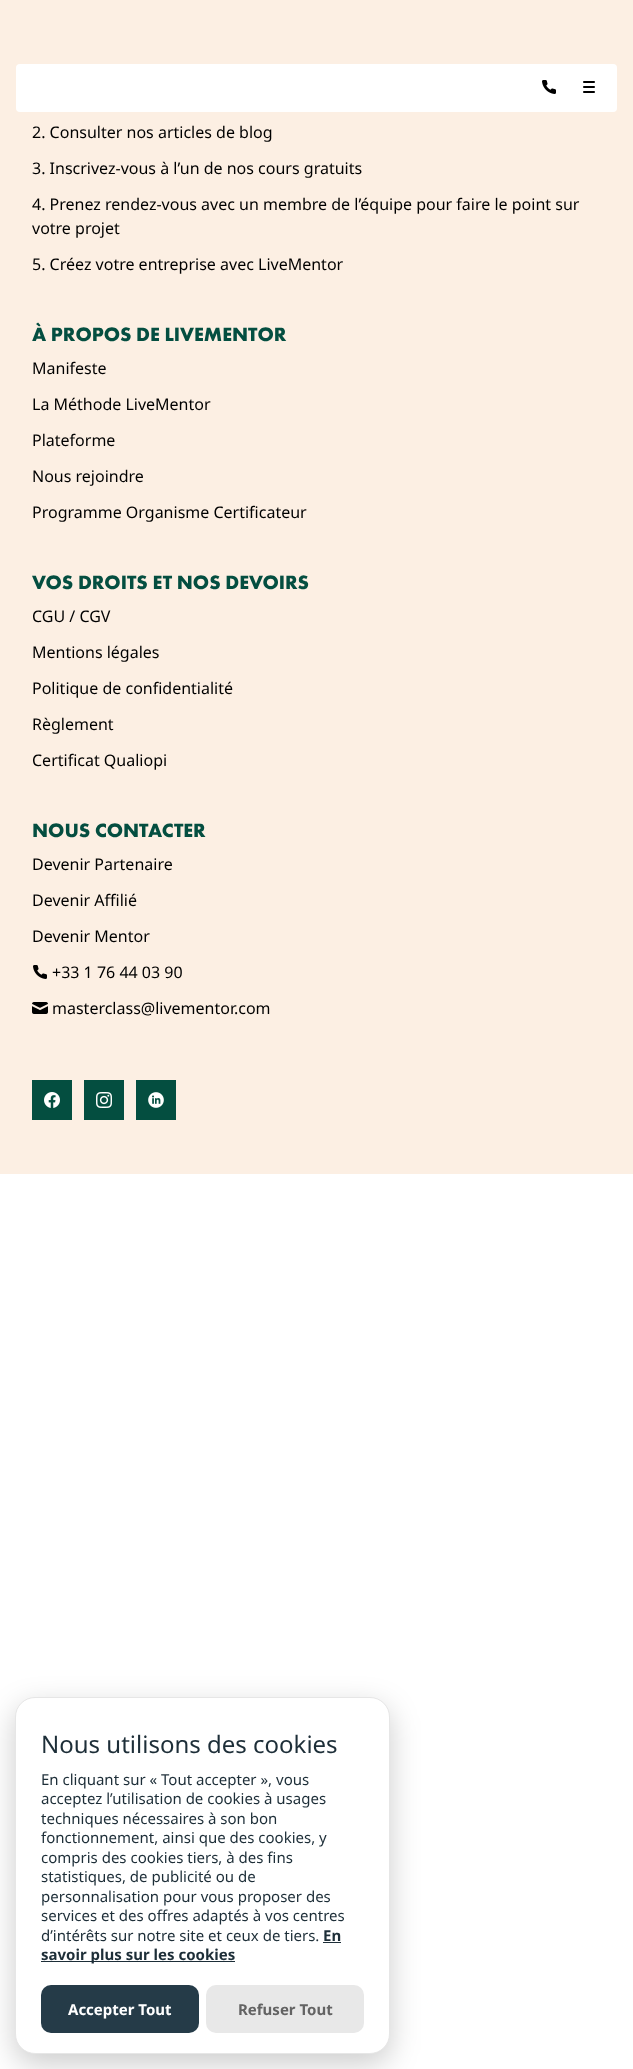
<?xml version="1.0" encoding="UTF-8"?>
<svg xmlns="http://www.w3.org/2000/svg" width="633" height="2069">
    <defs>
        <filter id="blur1" x="-50%" y="-200%" width="200%" height="500%"><feGaussianBlur stdDeviation="15"/></filter>
    </defs>
    <rect width="100%" height="100%" fill="#FFFFFF"/>
    <rect x="0" y="0" width="633" height="1174" fill="#FCEFE3"/>
    <rect x="16" y="64" width="601" height="48" rx="4" fill="#FFFFFF"/>
    <image x="542" y="80" width="14" height="14" href="img_01.png"/>
    <image x="583" y="81" width="12" height="12" href="img_02.png"/>
    <text x="32" y="138" font-family="Noto Sans" font-size="16" fill="#000000">2. Consulter nos articles de blog</text>
    <text x="32" y="174" font-family="Noto Sans" font-size="16" fill="#000000">3. Inscrivez-vous à l’un de nos cours gratuits</text>
    <text font-family="Noto Sans" font-size="16" fill="#000000">
        <tspan x="32" y="210">4. Prenez rendez-vous avec un membre de l’équipe pour faire le point sur</tspan>
        <tspan x="32" y="234">votre projet</tspan>
    </text>
    <text x="32" y="270" font-family="Noto Sans" font-size="16" fill="#000000">5. Créez votre entreprise avec LiveMentor</text>
    <text x="32" y="341" font-family="Futura PT" font-size="20" font-weight="700" fill="#044E40">À PROPOS DE LIVEMENTOR</text>
    <text x="32" y="374" font-family="Noto Sans" font-size="16" fill="#000000">Manifeste</text>
    <text x="32" y="410" font-family="Noto Sans" font-size="16" fill="#000000">La Méthode LiveMentor</text>
    <text x="32" y="446" font-family="Noto Sans" font-size="16" fill="#000000">Plateforme</text>
    <text x="32" y="482" font-family="Noto Sans" font-size="16" fill="#000000">Nous rejoindre</text>
    <text x="32" y="518" font-family="Noto Sans" font-size="16" fill="#000000">Programme Organisme Certificateur</text>
    <text x="32" y="589" font-family="Futura PT" font-size="20" font-weight="700" fill="#044E40">VOS DROITS ET NOS DEVOIRS</text>
    <text x="32" y="622" font-family="Noto Sans" font-size="16" fill="#000000">CGU / CGV</text>
    <text x="32" y="658" font-family="Noto Sans" font-size="16" fill="#000000">Mentions légales</text>
    <text x="32" y="694" font-family="Noto Sans" font-size="16" fill="#000000">Politique de confidentialité</text>
    <text x="32" y="730" font-family="Noto Sans" font-size="16" fill="#000000">Règlement</text>
    <text x="32" y="766" font-family="Noto Sans" font-size="16" fill="#000000">Certificat Qualiopi</text>
    <text x="32" y="837" font-family="Futura PT" font-size="20" font-weight="700" fill="#044E40">NOUS CONTACTER</text>
    <text x="32" y="870" font-family="Noto Sans" font-size="16" fill="#000000">Devenir Partenaire</text>
    <text x="32" y="906" font-family="Noto Sans" font-size="16" fill="#000000">Devenir Affilié</text>
    <text x="32" y="942" font-family="Noto Sans" font-size="16" fill="#000000">Devenir Mentor</text>
    <image x="33" y="965" width="14" height="14" href="img_03.png"/>
    <text x="52" y="978" font-family="Noto Sans" font-size="16" fill="#000000">+33 1 76 44 03 90</text>
    <image x="32" y="1002" width="16" height="12" href="img_04.png"/>
    <text x="52" y="1014" font-family="Noto Sans" font-size="16" fill="#000000">masterclass@livementor.com</text>
    <rect x="32" y="1080" width="40" height="40" fill="#044E40"/>
    <image x="44" y="1092" width="16" height="16" href="img_05.png"/>
    <rect x="84" y="1080" width="40" height="40" fill="#044E40"/>
    <image x="96" y="1092" width="16" height="16" href="img_06.png"/>
    <rect x="136" y="1080" width="40" height="40" fill="#044E40"/>
    <image x="148" y="1092" width="16" height="16" href="img_07.png"/>
    <rect x="15" y="1707" width="375" height="357" rx="20" fill="#020203" fill-opacity="0.2" filter="url(#blur1)"/>
    <rect x="15.5" y="1697.5" width="374" height="356" rx="19.5" fill="#FFFFFF" stroke="#E6E6E6"/>
    <text x="41" y="1753" font-family="Noto Sans" font-size="24" fill="#1D2E38">Nous utilisons des cookies</text>
    <text font-family="Noto Sans" font-size="15" fill="#1D2E38">
        <tspan x="41" y="1785">En cliquant sur « Tout accepter », vous</tspan>
        <tspan x="41" y="1804">acceptez l’utilisation de cookies à usages</tspan>
        <tspan x="41" y="1824">techniques nécessaires à son bon</tspan>
        <tspan x="41" y="1843">fonctionnement, ainsi que des cookies, y</tspan>
        <tspan x="41" y="1863">compris des cookies tiers, à des fins</tspan>
        <tspan x="41" y="1882">statistiques, de publicité ou de</tspan>
        <tspan x="41" y="1902">personnalisation pour vous proposer des</tspan>
        <tspan x="41" y="1921">services et des offres adaptés à vos centres</tspan>
        <tspan x="41" y="1941">d’intérêts sur notre site et ceux de tiers.</tspan>
    </text>
    <text x="323" y="1941" font-family="Noto Sans" font-size="15" font-weight="700" fill="#1D2E38">En</text>
    <rect x="323" y="1942" width="18" height="1" fill="#1D2E38"/>
    <rect x="41" y="1961" width="194" height="1" fill="#1D2E38"/>
    <text x="41" y="1960" font-family="Noto Sans" font-size="15" font-weight="700" fill="#1D2E38">savoir plus sur les cookies</text>
    <rect x="41" y="1985" width="158" height="48" rx="10" fill="#253B48"/>
    <text x="68" y="2015" font-family="Noto Sans" font-size="15" font-weight="700" fill="#FFFFFF">Accepter Tout</text>
    <rect x="206" y="1985" width="158" height="48" rx="10" fill="#E8E8E8"/>
    <text x="238" y="2015" font-family="Noto Sans" font-size="15" font-weight="700" fill="#636363">Refuser Tout</text>
</svg>
